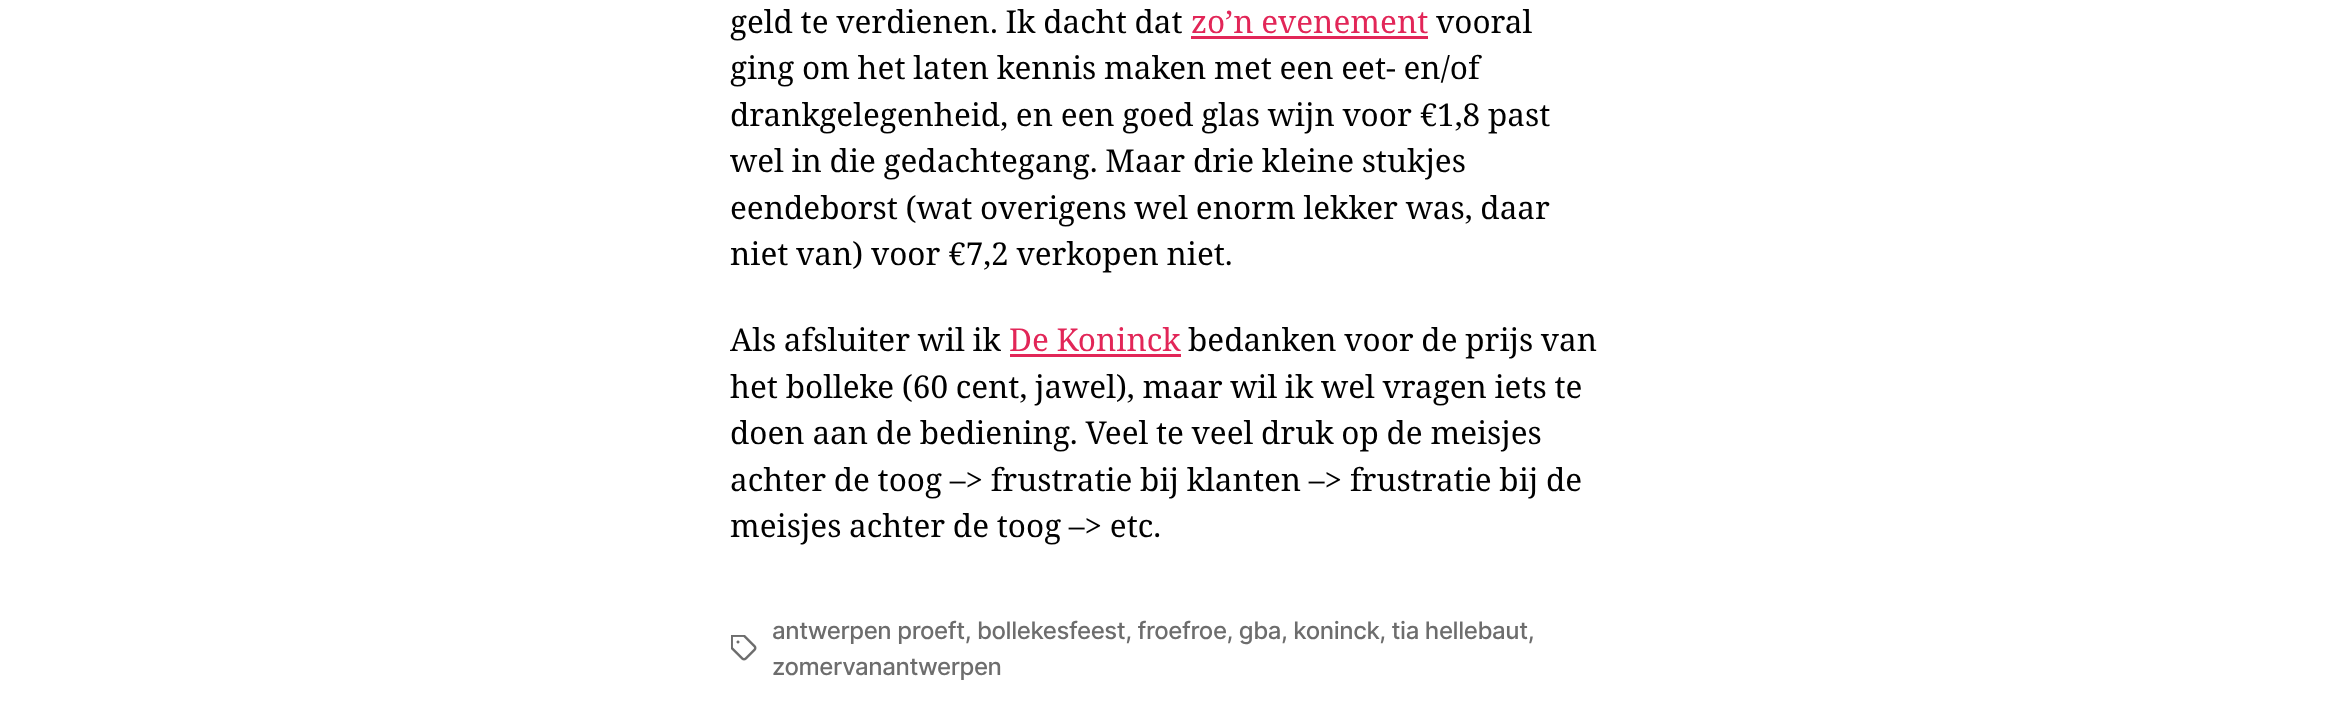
<?xml version="1.0" encoding="UTF-8"?>
<svg xmlns="http://www.w3.org/2000/svg" width="2329" height="712">
    <rect width="100%" height="100%" fill="#FFFFFF"/>
    <text x="730" y="33" word-spacing="-0.5" font-family="Noto Serif" font-size="31.5" fill="#000000">geld te verdienen. Ik dacht dat</text>
    <text x="1191" y="33" word-spacing="-0.5" font-family="Noto Serif" font-size="31.5" fill="#E22658">zo’n evenement</text>
    <rect x="1191" y="36" width="237" height="3" fill="#E22658"/>
    <text x="1436" y="33" font-family="Noto Serif" font-size="31.5" fill="#000000">vooral</text>
    <text font-family="Noto Serif" font-size="31.5" fill="#000000">
        <tspan x="730" y="79" word-spacing="-0.5">ging om het laten kennis maken met een eet- en/of</tspan>
        <tspan x="730" y="126" word-spacing="-0.5">drankgelegenheid, en een goed glas wijn voor €1,8 past</tspan>
        <tspan x="730" y="172" word-spacing="-0.5">wel in die gedachtegang. Maar drie kleine stukjes</tspan>
        <tspan x="730" y="219" word-spacing="-0.5">eendeborst (wat overigens wel enorm lekker was, daar</tspan>
        <tspan x="730" y="265" word-spacing="-0.5">niet van) voor €7,2 verkopen niet.</tspan>
    </text>
    <text x="730" y="351" word-spacing="-0.5" font-family="Noto Serif" font-size="31.5" fill="#000000">Als afsluiter wil ik</text>
    <text x="1009" y="351" word-spacing="-0.5" font-family="Noto Serif" font-size="31.5" fill="#E22658">De Koninck</text>
    <rect x="1010" y="354" width="171" height="3" fill="#E22658"/>
    <text x="1188" y="351" word-spacing="-0.5" font-family="Noto Serif" font-size="31.5" fill="#000000">bedanken voor de prijs van</text>
    <text font-family="Noto Serif" font-size="31.5" fill="#000000">
        <tspan x="730" y="398" word-spacing="-0.5">het bolleke (60 cent, jawel), maar wil ik wel vragen iets te</tspan>
        <tspan x="730" y="444" word-spacing="-0.5">doen aan de bediening. Veel te veel druk op de meisjes</tspan>
        <tspan x="730" y="491" word-spacing="-0.5">achter de toog –&gt; frustratie bij klanten –&gt; frustratie bij de</tspan>
        <tspan x="730" y="537" word-spacing="-0.5">meisjes achter de toog –&gt; etc.</tspan>
    </text>
    <image x="731" y="635" width="26" height="26" href="img_01.png"/>
    <text font-family="Inter" font-size="24" font-weight="500" letter-spacing="-0.4" fill="#6D6D6D">
        <tspan x="772" y="639">antwerpen proeft, bollekesfeest, froefroe, gba, koninck, tia hellebaut,</tspan>
        <tspan x="772" y="675">zomervanantwerpen</tspan>
    </text>
</svg>
